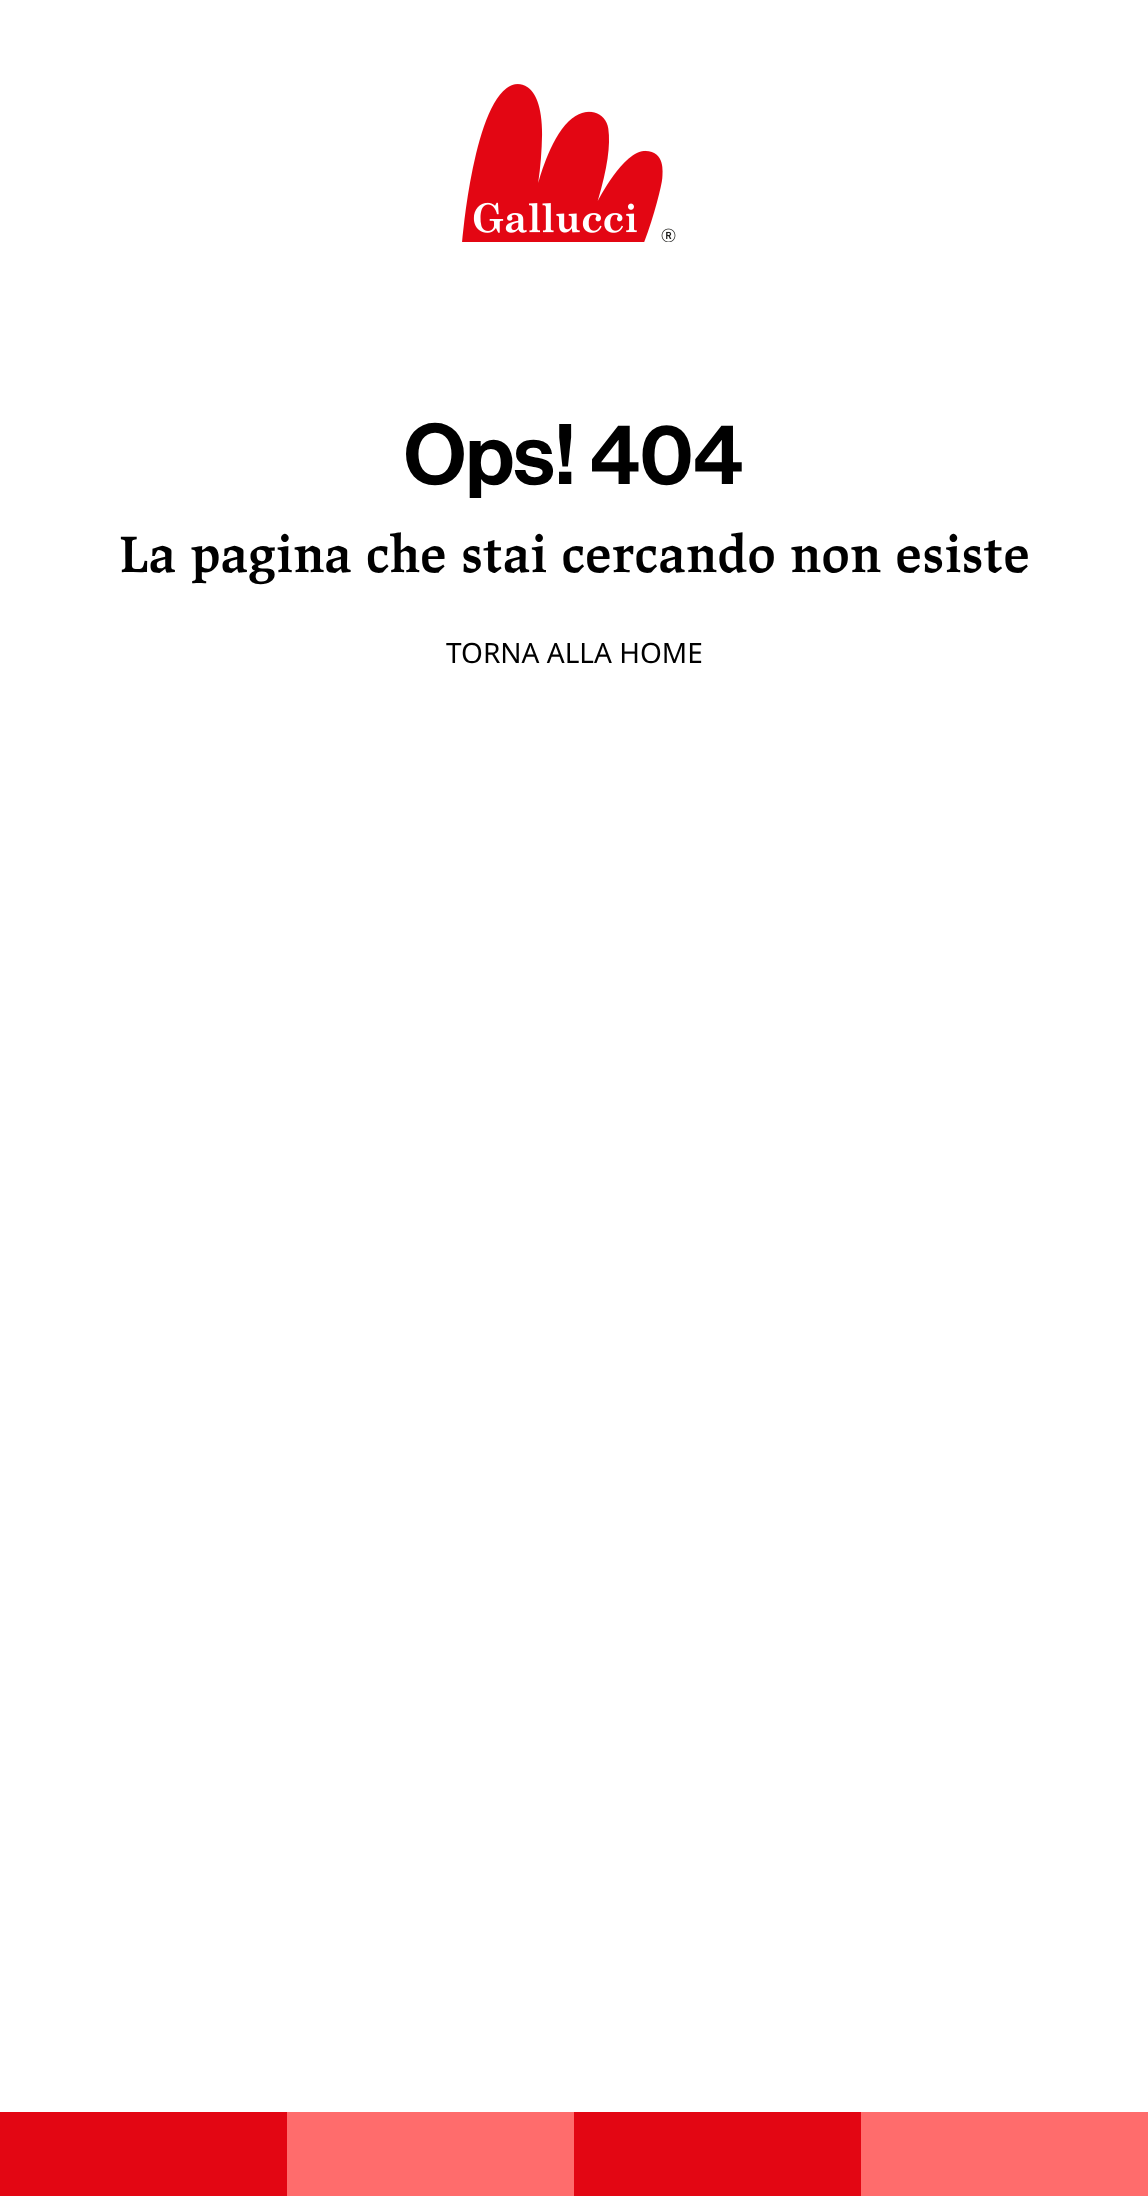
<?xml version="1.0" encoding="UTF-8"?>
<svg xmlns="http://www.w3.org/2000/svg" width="1148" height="2196">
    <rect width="100%" height="100%" fill="#FFFFFF"/>
    <image x="462" y="84" width="214" height="158" href="img_01.png"/>
    <text x="404" y="484" font-family="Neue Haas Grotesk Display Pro" font-size="84" font-weight="500" fill="#000000">Ops! 404</text>
    <text x="119" y="572" font-family="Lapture" font-size="52.5" font-weight="600" fill="#000000">La pagina che stai cercando non esiste</text>
    <text x="446" y="663" font-family="Noto Sans" font-size="28" fill="#000000">TORNA ALLA HOME</text>
    <rect x="0" y="2112" width="287" height="84" fill="#E30613"/>
    <rect x="287" y="2112" width="287" height="84" fill="#FF6C6C"/>
    <rect x="574" y="2112" width="287" height="84" fill="#E30613"/>
    <rect x="861" y="2112" width="287" height="84" fill="#FF6C6C"/>
</svg>
